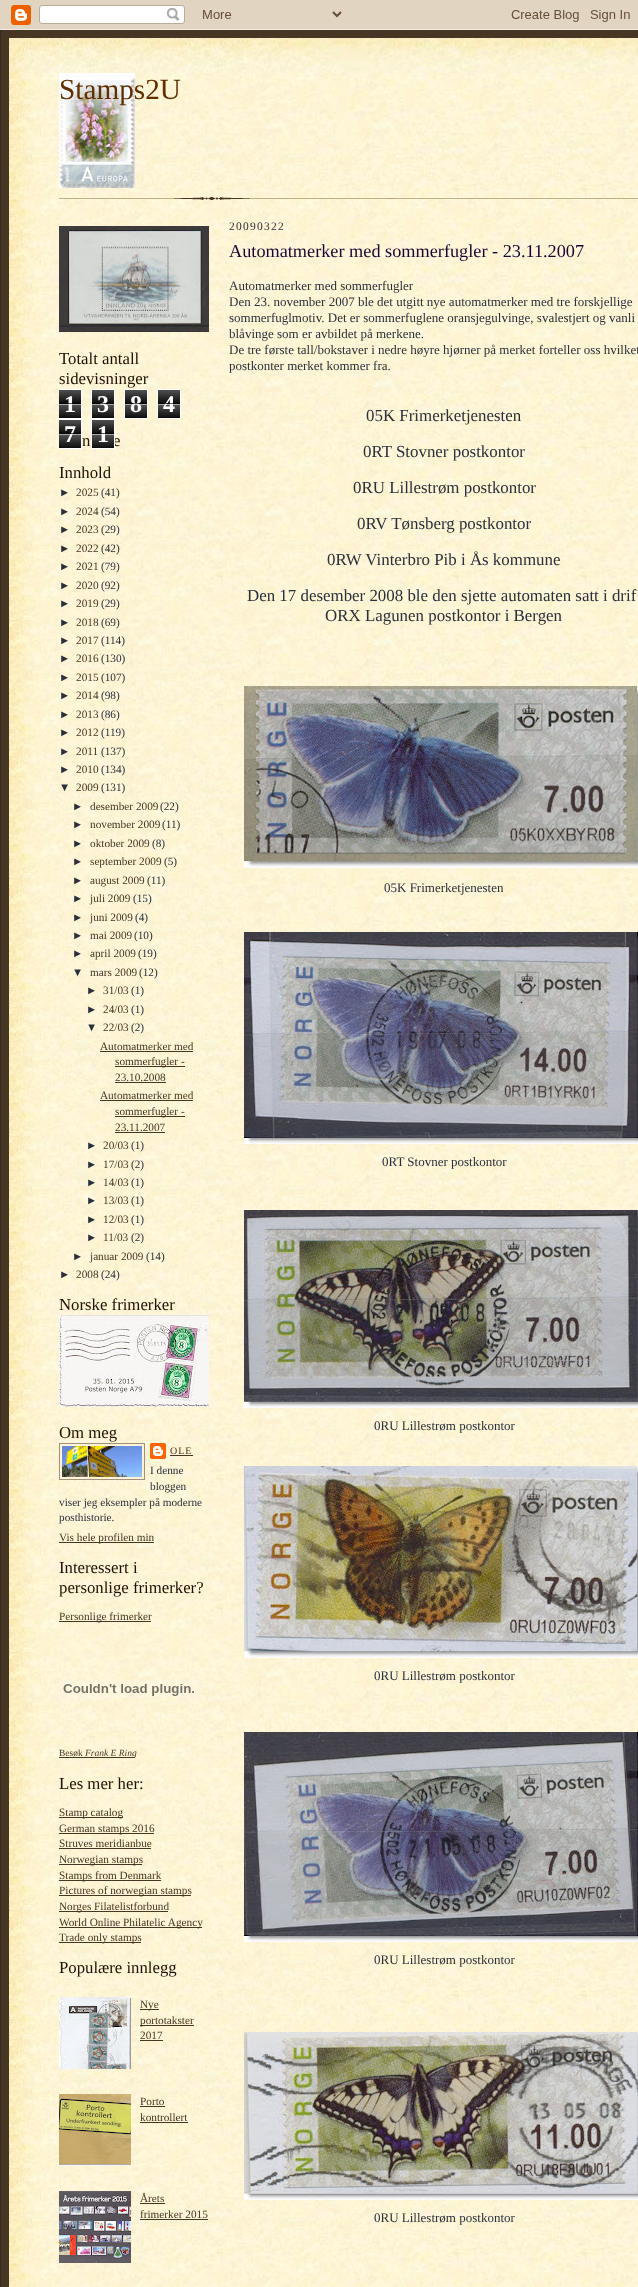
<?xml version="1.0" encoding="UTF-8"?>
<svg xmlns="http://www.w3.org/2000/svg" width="638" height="2287">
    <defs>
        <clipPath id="clip1"><rect x="59" y="212" width="150" height="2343"/></clipPath>
    </defs>
    <rect width="100%" height="100%" fill="#473624"/>
    <image x="0" y="0" width="638" height="30" href="img_01.png"/>
    <rect x="0" y="30" width="1" height="2257" fill="#332A24"/>
    <image x="9" y="38" width="629" height="35" href="img_02.png"/>
    <image x="9" y="73" width="629" height="2214" href="img_03.png"/>
    <image x="59" y="197" width="579" height="3" href="img_04.png"/>
    <image x="59" y="73" width="76" height="115" href="img_05.png"/>
    <text x="59" y="99" font-family="Liberation Serif" font-size="29.25" fill="#612E00">Stamps2U</text>
    <image x="59" y="226" width="150" height="106" href="img_06.png"/>
    <text font-family="Liberation Serif" font-size="16.75" fill="#211104">
        <tspan x="59" y="364">Totalt antall</tspan>
        <tspan x="59" y="384">sidevisninger</tspan>
    </text>
    <image x="59" y="390" width="22" height="28" href="img_07.png"/>
    <g clip-path="url(#clip1)">
        <rect x="58.5" y="389.5" width="23" height="29" fill="none" stroke="#FFFFFF"/>
    </g>
    <text x="64" y="412" font-family="Liberation Serif" font-size="24" font-weight="700" fill="#FFFFFF">1</text>
    <rect x="59" y="403" width="22" height="1" fill="#000000" fill-opacity="0.65"/>
    <rect x="59" y="404" width="22" height="1" fill="#FFFFFF" fill-opacity="0.65"/>
    <image x="92" y="390" width="22" height="28" href="img_07.png"/>
    <rect x="91.5" y="389.5" width="23" height="29" fill="none" stroke="#FFFFFF"/>
    <text x="97" y="412" font-family="Liberation Serif" font-size="24" font-weight="700" fill="#FFFFFF">3</text>
    <rect x="92" y="403" width="22" height="1" fill="#000000" fill-opacity="0.65"/>
    <rect x="92" y="404" width="22" height="1" fill="#FFFFFF" fill-opacity="0.65"/>
    <image x="125" y="390" width="22" height="28" href="img_07.png"/>
    <rect x="124.5" y="389.5" width="23" height="29" fill="none" stroke="#FFFFFF"/>
    <text x="130" y="412" font-family="Liberation Serif" font-size="24" font-weight="700" fill="#FFFFFF">8</text>
    <rect x="125" y="403" width="22" height="1" fill="#000000" fill-opacity="0.65"/>
    <rect x="125" y="404" width="22" height="1" fill="#FFFFFF" fill-opacity="0.65"/>
    <image x="158" y="390" width="22" height="28" href="img_07.png"/>
    <rect x="157.5" y="389.5" width="23" height="29" fill="none" stroke="#FFFFFF"/>
    <text x="163" y="412" font-family="Liberation Serif" font-size="24" font-weight="700" fill="#FFFFFF">4</text>
    <rect x="158" y="403" width="22" height="1" fill="#000000" fill-opacity="0.65"/>
    <rect x="158" y="404" width="22" height="1" fill="#FFFFFF" fill-opacity="0.65"/>
    <image x="59" y="420" width="22" height="28" href="img_07.png"/>
    <g clip-path="url(#clip1)">
        <rect x="58.5" y="419.5" width="23" height="29" fill="none" stroke="#FFFFFF"/>
    </g>
    <text x="64" y="442" font-family="Liberation Serif" font-size="24" font-weight="700" fill="#FFFFFF">7</text>
    <rect x="59" y="433" width="22" height="1" fill="#000000" fill-opacity="0.65"/>
    <rect x="59" y="434" width="22" height="1" fill="#FFFFFF" fill-opacity="0.65"/>
    <image x="92" y="420" width="22" height="28" href="img_07.png"/>
    <text x="113" y="446" font-family="Liberation Serif" font-size="16.75" fill="#211104">e</text>
    <rect x="91.5" y="419.5" width="23" height="29" fill="none" stroke="#FFFFFF"/>
    <text x="97" y="442" font-family="Liberation Serif" font-size="24" font-weight="700" fill="#FFFFFF">1</text>
    <rect x="92" y="433" width="22" height="1" fill="#000000" fill-opacity="0.65"/>
    <rect x="92" y="434" width="22" height="1" fill="#FFFFFF" fill-opacity="0.65"/>
    <text x="82" y="446" font-family="Liberation Serif" font-size="16.75" fill="#211104">n</text>
    <text x="59" y="478" font-family="Liberation Serif" font-size="16.75" fill="#211104">Innhold</text>
    <text x="59" y="496" font-family="Liberation Sans" font-size="11.25" fill="#29303B">►</text>
    <text x="76" y="496" font-family="Liberation Serif" font-size="11.25" fill="#473624">2025</text>
    <text x="101" y="496" font-family="Liberation Serif" font-size="11.25" fill="#29303B">(41)</text>
    <text x="59" y="515" font-family="Liberation Sans" font-size="11.25" fill="#29303B">►</text>
    <text x="76" y="515" font-family="Liberation Serif" font-size="11.25" fill="#473624">2024</text>
    <text x="101" y="515" font-family="Liberation Serif" font-size="11.25" fill="#29303B">(54)</text>
    <text x="59" y="533" font-family="Liberation Sans" font-size="11.25" fill="#29303B">►</text>
    <text x="76" y="533" font-family="Liberation Serif" font-size="11.25" fill="#473624">2023</text>
    <text x="101" y="533" font-family="Liberation Serif" font-size="11.25" fill="#29303B">(29)</text>
    <text x="59" y="552" font-family="Liberation Sans" font-size="11.25" fill="#29303B">►</text>
    <text x="76" y="552" font-family="Liberation Serif" font-size="11.25" fill="#473624">2022</text>
    <text x="101" y="552" font-family="Liberation Serif" font-size="11.25" fill="#29303B">(42)</text>
    <text x="59" y="570" font-family="Liberation Sans" font-size="11.25" fill="#29303B">►</text>
    <text x="76" y="570" font-family="Liberation Serif" font-size="11.25" fill="#473624">2021</text>
    <text x="101" y="570" font-family="Liberation Serif" font-size="11.25" fill="#29303B">(79)</text>
    <text x="59" y="589" font-family="Liberation Sans" font-size="11.25" fill="#29303B">►</text>
    <text x="76" y="589" font-family="Liberation Serif" font-size="11.25" fill="#473624">2020</text>
    <text x="101" y="589" font-family="Liberation Serif" font-size="11.25" fill="#29303B">(92)</text>
    <text x="59" y="607" font-family="Liberation Sans" font-size="11.25" fill="#29303B">►</text>
    <text x="76" y="607" font-family="Liberation Serif" font-size="11.25" fill="#473624">2019</text>
    <text x="101" y="607" font-family="Liberation Serif" font-size="11.25" fill="#29303B">(29)</text>
    <text x="59" y="626" font-family="Liberation Sans" font-size="11.25" fill="#29303B">►</text>
    <text x="76" y="626" font-family="Liberation Serif" font-size="11.25" fill="#473624">2018</text>
    <text x="101" y="626" font-family="Liberation Serif" font-size="11.25" fill="#29303B">(69)</text>
    <text x="59" y="644" font-family="Liberation Sans" font-size="11.25" fill="#29303B">►</text>
    <text x="76" y="644" font-family="Liberation Serif" font-size="11.25" fill="#473624">2017</text>
    <text x="101" y="644" font-family="Liberation Serif" font-size="11.25" fill="#29303B">(114)</text>
    <text x="59" y="662" font-family="Liberation Sans" font-size="11.25" fill="#29303B">►</text>
    <text x="76" y="662" font-family="Liberation Serif" font-size="11.25" fill="#473624">2016</text>
    <text x="101" y="662" font-family="Liberation Serif" font-size="11.25" fill="#29303B">(130)</text>
    <text x="59" y="681" font-family="Liberation Sans" font-size="11.25" fill="#29303B">►</text>
    <text x="76" y="681" font-family="Liberation Serif" font-size="11.25" fill="#473624">2015</text>
    <text x="101" y="681" font-family="Liberation Serif" font-size="11.25" fill="#29303B">(107)</text>
    <text x="59" y="699" font-family="Liberation Sans" font-size="11.25" fill="#29303B">►</text>
    <text x="76" y="699" font-family="Liberation Serif" font-size="11.25" fill="#473624">2014</text>
    <text x="101" y="699" font-family="Liberation Serif" font-size="11.25" fill="#29303B">(98)</text>
    <text x="59" y="718" font-family="Liberation Sans" font-size="11.25" fill="#29303B">►</text>
    <text x="76" y="718" font-family="Liberation Serif" font-size="11.25" fill="#473624">2013</text>
    <text x="101" y="718" font-family="Liberation Serif" font-size="11.25" fill="#29303B">(86)</text>
    <text x="59" y="736" font-family="Liberation Sans" font-size="11.25" fill="#29303B">►</text>
    <text x="76" y="736" font-family="Liberation Serif" font-size="11.25" fill="#473624">2012</text>
    <text x="101" y="736" font-family="Liberation Serif" font-size="11.25" fill="#29303B">(119)</text>
    <text x="59" y="755" font-family="Liberation Sans" font-size="11.25" fill="#29303B">►</text>
    <text x="76" y="755" font-family="Liberation Serif" font-size="11.25" fill="#473624">2011</text>
    <text x="101" y="755" font-family="Liberation Serif" font-size="11.25" fill="#29303B">(137)</text>
    <text x="59" y="773" font-family="Liberation Sans" font-size="11.25" fill="#29303B">►</text>
    <text x="76" y="773" font-family="Liberation Serif" font-size="11.25" fill="#473624">2010</text>
    <text x="101" y="773" font-family="Liberation Serif" font-size="11.25" fill="#29303B">(134)</text>
    <text x="59" y="791" font-family="Liberation Sans" font-size="11.25" fill="#29303B">▼</text>
    <text x="76" y="791" font-family="Liberation Serif" font-size="11.25" fill="#473624">2009</text>
    <text x="101" y="791" font-family="Liberation Serif" font-size="11.25" fill="#29303B">(131)</text>
    <text x="72" y="810" font-family="Liberation Sans" font-size="11.25" fill="#29303B">►</text>
    <text x="90" y="810" font-family="Liberation Serif" font-size="11.25" fill="#473624">desember 2009</text>
    <text x="160" y="810" font-family="Liberation Serif" font-size="11.25" fill="#29303B">(22)</text>
    <text x="72" y="828" font-family="Liberation Sans" font-size="11.25" fill="#29303B">►</text>
    <text x="90" y="828" font-family="Liberation Serif" font-size="11.25" fill="#473624">november 2009</text>
    <text x="162" y="828" font-family="Liberation Serif" font-size="11.25" fill="#29303B">(11)</text>
    <text x="72" y="847" font-family="Liberation Sans" font-size="11.25" fill="#29303B">►</text>
    <text x="90" y="847" font-family="Liberation Serif" font-size="11.25" fill="#473624">oktober 2009</text>
    <text x="152" y="847" font-family="Liberation Serif" font-size="11.25" fill="#29303B">(8)</text>
    <text x="72" y="865" font-family="Liberation Sans" font-size="11.25" fill="#29303B">►</text>
    <text x="90" y="865" font-family="Liberation Serif" font-size="11.25" fill="#473624">september 2009</text>
    <text x="164" y="865" font-family="Liberation Serif" font-size="11.25" fill="#29303B">(5)</text>
    <text x="72" y="884" font-family="Liberation Sans" font-size="11.25" fill="#29303B">►</text>
    <text x="90" y="884" font-family="Liberation Serif" font-size="11.25" fill="#473624">august 2009</text>
    <text x="147" y="884" font-family="Liberation Serif" font-size="11.25" fill="#29303B">(11)</text>
    <text x="72" y="902" font-family="Liberation Sans" font-size="11.25" fill="#29303B">►</text>
    <text x="90" y="902" font-family="Liberation Serif" font-size="11.25" fill="#473624">juli 2009</text>
    <text x="133" y="902" font-family="Liberation Serif" font-size="11.25" fill="#29303B">(15)</text>
    <text x="72" y="921" font-family="Liberation Sans" font-size="11.25" fill="#29303B">►</text>
    <text x="90" y="921" font-family="Liberation Serif" font-size="11.25" fill="#473624">juni 2009</text>
    <text x="135" y="921" font-family="Liberation Serif" font-size="11.25" fill="#29303B">(4)</text>
    <text x="72" y="939" font-family="Liberation Sans" font-size="11.25" fill="#29303B">►</text>
    <text x="90" y="939" font-family="Liberation Serif" font-size="11.25" fill="#473624">mai 2009</text>
    <text x="134" y="939" font-family="Liberation Serif" font-size="11.25" fill="#29303B">(10)</text>
    <text x="72" y="957" font-family="Liberation Sans" font-size="11.25" fill="#29303B">►</text>
    <text x="90" y="957" font-family="Liberation Serif" font-size="11.25" fill="#473624">april 2009</text>
    <text x="138" y="957" font-family="Liberation Serif" font-size="11.25" fill="#29303B">(19)</text>
    <text x="72" y="976" font-family="Liberation Sans" font-size="11.25" fill="#29303B">▼</text>
    <text x="90" y="976" font-family="Liberation Serif" font-size="11.25" fill="#473624">mars 2009</text>
    <text x="139" y="976" font-family="Liberation Serif" font-size="11.25" fill="#29303B">(12)</text>
    <text x="86" y="994" font-family="Liberation Sans" font-size="11.25" fill="#29303B">►</text>
    <text x="103" y="994" font-family="Liberation Serif" font-size="11.25" fill="#473624">31/03</text>
    <text x="131" y="994" font-family="Liberation Serif" font-size="11.25" fill="#29303B">(1)</text>
    <text x="86" y="1013" font-family="Liberation Sans" font-size="11.25" fill="#29303B">►</text>
    <text x="103" y="1013" font-family="Liberation Serif" font-size="11.25" fill="#473624">24/03</text>
    <text x="131" y="1013" font-family="Liberation Serif" font-size="11.25" fill="#29303B">(1)</text>
    <text x="86" y="1031" font-family="Liberation Sans" font-size="11.25" fill="#29303B">▼</text>
    <text x="103" y="1031" font-family="Liberation Serif" font-size="11.25" fill="#473624">22/03</text>
    <text x="131" y="1031" font-family="Liberation Serif" font-size="11.25" fill="#29303B">(2)</text>
    <text x="100" y="1050" font-family="Liberation Serif" font-size="11.25" fill="#473624">Automatmerker med</text>
    <rect x="100" y="1051" width="93" height="1" fill="#473624"/>
    <rect x="115" y="1066" width="70" height="1" fill="#473624"/>
    <text font-family="Liberation Serif" font-size="11.25" fill="#473624">
        <tspan x="115" y="1065">sommerfugler -</tspan>
        <tspan x="115" y="1081">23.10.2008</tspan>
    </text>
    <rect x="115" y="1082" width="51" height="1" fill="#473624"/>
    <text x="100" y="1099" font-family="Liberation Serif" font-size="11.25" fill="#473624">Automatmerker med</text>
    <rect x="100" y="1100" width="93" height="1" fill="#473624"/>
    <rect x="115" y="1116" width="70" height="1" fill="#473624"/>
    <text font-family="Liberation Serif" font-size="11.25" fill="#473624">
        <tspan x="115" y="1115">sommerfugler -</tspan>
        <tspan x="115" y="1131">23.11.2007</tspan>
    </text>
    <rect x="115" y="1132" width="50" height="1" fill="#473624"/>
    <text x="86" y="1149" font-family="Liberation Sans" font-size="11.25" fill="#29303B">►</text>
    <text x="103" y="1149" font-family="Liberation Serif" font-size="11.25" fill="#473624">20/03</text>
    <text x="131" y="1149" font-family="Liberation Serif" font-size="11.25" fill="#29303B">(1)</text>
    <text x="86" y="1168" font-family="Liberation Sans" font-size="11.25" fill="#29303B">►</text>
    <text x="103" y="1168" font-family="Liberation Serif" font-size="11.25" fill="#473624">17/03</text>
    <text x="131" y="1168" font-family="Liberation Serif" font-size="11.25" fill="#29303B">(2)</text>
    <text x="86" y="1186" font-family="Liberation Sans" font-size="11.25" fill="#29303B">►</text>
    <text x="103" y="1186" font-family="Liberation Serif" font-size="11.25" fill="#473624">14/03</text>
    <text x="131" y="1186" font-family="Liberation Serif" font-size="11.25" fill="#29303B">(1)</text>
    <text x="86" y="1204" font-family="Liberation Sans" font-size="11.25" fill="#29303B">►</text>
    <text x="103" y="1204" font-family="Liberation Serif" font-size="11.25" fill="#473624">13/03</text>
    <text x="131" y="1204" font-family="Liberation Serif" font-size="11.25" fill="#29303B">(1)</text>
    <text x="86" y="1223" font-family="Liberation Sans" font-size="11.25" fill="#29303B">►</text>
    <text x="103" y="1223" font-family="Liberation Serif" font-size="11.25" fill="#473624">12/03</text>
    <text x="131" y="1223" font-family="Liberation Serif" font-size="11.25" fill="#29303B">(1)</text>
    <text x="86" y="1241" font-family="Liberation Sans" font-size="11.25" fill="#29303B">►</text>
    <text x="103" y="1241" font-family="Liberation Serif" font-size="11.25" fill="#473624">11/03</text>
    <text x="131" y="1241" font-family="Liberation Serif" font-size="11.25" fill="#29303B">(2)</text>
    <text x="72" y="1260" font-family="Liberation Sans" font-size="11.25" fill="#29303B">►</text>
    <text x="90" y="1260" font-family="Liberation Serif" font-size="11.25" fill="#473624">januar 2009</text>
    <text x="146" y="1260" font-family="Liberation Serif" font-size="11.25" fill="#29303B">(14)</text>
    <text x="59" y="1278" font-family="Liberation Sans" font-size="11.25" fill="#29303B">►</text>
    <text x="76" y="1278" font-family="Liberation Serif" font-size="11.25" fill="#473624">2008</text>
    <text x="101" y="1278" font-family="Liberation Serif" font-size="11.25" fill="#29303B">(24)</text>
    <text x="59" y="1310" font-family="Liberation Serif" font-size="16.75" fill="#211104">Norske frimerker</text>
    <image x="59" y="1315" width="150" height="92" href="img_08.png"/>
    <text x="59" y="1438" font-family="Liberation Serif" font-size="16.75" fill="#211104">Om meg</text>
    <rect x="59.5" y="1443.5" width="85" height="36" fill="none" stroke="#A2907D"/>
    <image x="62" y="1446" width="80" height="31" href="img_09.png"/>
    <image x="150" y="1443" width="16" height="16" href="img_10.png"/>
    <text x="170" y="1454" font-family="Liberation Serif" font-size="10" letter-spacing="1" fill="#473624">OLE</text>
    <rect x="170" y="1455" width="23" height="1" fill="#473624"/>
    <text font-family="Liberation Serif" font-size="11.25" fill="#29303B">
        <tspan x="150" y="1474">I denne</tspan>
        <tspan x="150" y="1490">bloggen</tspan>
    </text>
    <text font-family="Liberation Serif" font-size="11.25" fill="#29303B">
        <tspan x="59" y="1506">viser jeg eksempler på moderne</tspan>
        <tspan x="59" y="1521">posthistorie.</tspan>
    </text>
    <rect x="59" y="1542" width="95" height="1" fill="#473624"/>
    <text x="59" y="1541" font-family="Liberation Serif" font-size="11.25" fill="#473624">Vis hele profilen min</text>
    <text font-family="Liberation Serif" font-size="16.75" fill="#211104">
        <tspan x="59" y="1573">Interessert i</tspan>
        <tspan x="59" y="1593">personlige frimerker?</tspan>
    </text>
    <rect x="59" y="1621" width="92" height="1" fill="#473624"/>
    <text x="59" y="1620" font-family="Liberation Serif" font-size="11.25" fill="#473624">Personlige frimerker</text>
    <image x="59" y="1680" width="140" height="18" href="img_11.png"/>
    <text x="59" y="1756" font-family="Liberation Serif" font-size="9.5" fill="#473624">Besøk</text>
    <rect x="59" y="1757" width="76" height="1" fill="#473624"/>
    <text x="85" y="1756" font-family="Liberation Serif" font-size="9.5" font-style="italic" fill="#473624">Frank E Ring</text>
    <text x="59" y="1789" font-family="Liberation Serif" font-size="16.75" fill="#211104">Les mer her:</text>
    <rect x="59" y="1817" width="64" height="1" fill="#473624"/>
    <text x="59" y="1816" font-family="Liberation Serif" font-size="11.25" fill="#473624">Stamp catalog</text>
    <rect x="59" y="1833" width="95" height="1" fill="#473624"/>
    <text font-family="Liberation Serif" font-size="11.25" fill="#473624">
        <tspan x="59" y="1832">German stamps 2016</tspan>
        <tspan x="59" y="1847">Struves meridianbue</tspan>
    </text>
    <rect x="59" y="1848" width="92" height="1" fill="#473624"/>
    <rect x="59" y="1864" width="83" height="1" fill="#473624"/>
    <text x="59" y="1863" font-family="Liberation Serif" font-size="11.25" fill="#473624">Norwegian stamps</text>
    <rect x="59" y="1880" width="102" height="1" fill="#473624"/>
    <text x="59" y="1879" font-family="Liberation Serif" font-size="11.25" fill="#473624">Stamps from Denmark</text>
    <rect x="59" y="1895" width="132" height="1" fill="#473624"/>
    <text x="59" y="1894" font-family="Liberation Serif" font-size="11.25" fill="#473624">Pictures of norwegian stamps</text>
    <rect x="59" y="1911" width="109" height="1" fill="#473624"/>
    <text x="59" y="1910" font-family="Liberation Serif" font-size="11.25" fill="#473624">Norges Filatelistforbund</text>
    <rect x="59" y="1927" width="143" height="1" fill="#473624"/>
    <text x="59" y="1926" font-family="Liberation Serif" font-size="11.25" fill="#473624">World Online Philatelic Agency</text>
    <rect x="59" y="1942" width="82" height="1" fill="#473624"/>
    <text x="59" y="1941" font-family="Liberation Serif" font-size="11.25" fill="#473624">Trade only stamps</text>
    <text x="59" y="1973" font-family="Liberation Serif" font-size="16.75" fill="#211104">Populære innlegg</text>
    <image x="59" y="1997" width="72" height="72" href="img_12.png"/>
    <rect x="140" y="2009" width="19" height="1" fill="#473624"/>
    <text x="140" y="2008" font-family="Liberation Serif" font-size="11.25" fill="#473624">Nye</text>
    <rect x="140" y="2025" width="54" height="1" fill="#473624"/>
    <text font-family="Liberation Serif" font-size="11.25" fill="#473624">
        <tspan x="140" y="2024">portotakster</tspan>
        <tspan x="140" y="2039">2017</tspan>
    </text>
    <rect x="140" y="2040" width="23" height="1" fill="#473624"/>
    <image x="59" y="2094" width="72" height="72" href="img_13.png"/>
    <text x="140" y="2105" font-family="Liberation Serif" font-size="11.25" fill="#473624">Porto</text>
    <rect x="140" y="2106" width="25" height="1" fill="#473624"/>
    <text x="140" y="2121" font-family="Liberation Serif" font-size="11.25" fill="#473624">kontrollert</text>
    <rect x="140" y="2122" width="48" height="1" fill="#473624"/>
    <image x="59" y="2191" width="72" height="72" href="img_14.png"/>
    <text x="140" y="2202" font-family="Liberation Serif" font-size="11.25" fill="#473624">Årets</text>
    <rect x="140" y="2203" width="25" height="1" fill="#473624"/>
    <text x="140" y="2218" font-family="Liberation Serif" font-size="11.25" fill="#473624">frimerker 2015</text>
    <rect x="140" y="2219" width="68" height="1" fill="#473624"/>
    <text x="229" y="230" font-family="Liberation Serif" font-size="11.5" letter-spacing="1.25" fill="#29303B">20090322</text>
    <text x="229" y="257" font-family="Liberation Serif" font-size="18.25" fill="#1B0431">Automatmerker med sommerfugler - 23.11.2007</text>
    <text font-family="Liberation Serif" font-size="13" fill="#29303B">
        <tspan x="229" y="290">Automatmerker med sommerfugler</tspan>
        <tspan x="229" y="306">Den 23. november 2007 ble det utgitt nye automatmerker med tre forskjellige</tspan>
        <tspan x="229" y="322">sommerfuglmotiv. Det er sommerfuglene oransjegulvinge, svalestjert og vanli</tspan>
        <tspan x="229" y="338">blåvinge som er avbildet på merkene.</tspan>
        <tspan x="229" y="354">De tre første tall/bokstaver i nedre høyre hjørner på merket forteller oss hvilket</tspan>
        <tspan x="229" y="370">postkonter merket kommer fra.</tspan>
    </text>
    <text x="366" y="421" font-family="Liberation Serif" font-size="16.9" fill="#29303B">05K Frimerketjenesten</text>
    <text x="363" y="457" font-family="Liberation Serif" font-size="16.9" fill="#29303B">0RT Stovner postkontor</text>
    <text x="353" y="493" font-family="Liberation Serif" font-size="16.9" fill="#29303B">0RU Lillestrøm postkontor</text>
    <text x="357" y="529" font-family="Liberation Serif" font-size="16.9" fill="#29303B">0RV Tønsberg postkontor</text>
    <text x="327" y="565" font-family="Liberation Serif" font-size="16.9" fill="#29303B">0RW Vinterbro Pib i Ås kommune</text>
    <text x="247" y="601" font-family="Liberation Serif" font-size="16.9" fill="#29303B">Den 17 desember 2008 ble den sjette automaten satt i drif</text>
    <text x="325" y="621" font-family="Liberation Serif" font-size="16.9" fill="#29303B">ORX Lagunen postkontor i Bergen</text>
    <image x="244" y="686" width="394" height="182" href="img_15.png"/>
    <text x="384" y="892" font-family="Liberation Serif" font-size="13" fill="#29303B">05K Frimerketjenesten</text>
    <image x="244" y="932" width="394" height="212" href="img_16.png"/>
    <text x="382" y="1166" font-family="Liberation Serif" font-size="13" fill="#29303B">0RT Stovner postkontor</text>
    <image x="244" y="1210" width="394" height="198" href="img_17.png"/>
    <text x="374" y="1430" font-family="Liberation Serif" font-size="13" fill="#29303B">0RU Lillestrøm postkontor</text>
    <image x="244" y="1466" width="394" height="192" href="img_18.png"/>
    <text x="374" y="1680" font-family="Liberation Serif" font-size="13" fill="#29303B">0RU Lillestrøm postkontor</text>
    <image x="244" y="1732" width="394" height="210" href="img_19.png"/>
    <text x="374" y="1964" font-family="Liberation Serif" font-size="13" fill="#29303B">0RU Lillestrøm postkontor</text>
    <image x="244" y="2032" width="394" height="168" href="img_20.png"/>
    <text x="374" y="2222" font-family="Liberation Serif" font-size="13" fill="#29303B">0RU Lillestrøm postkontor</text>
</svg>
